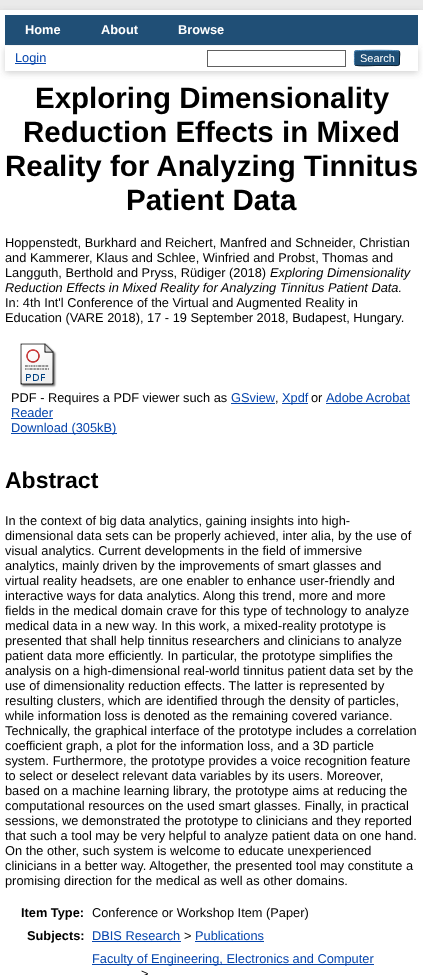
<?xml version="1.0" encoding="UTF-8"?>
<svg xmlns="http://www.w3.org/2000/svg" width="423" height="975">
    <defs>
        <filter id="blur1" x="-50%" y="-200%" width="200%" height="500%"><feGaussianBlur stdDeviation="3"/></filter>
    </defs>
    <rect width="100%" height="100%" fill="#EAEAEA"/>
    <rect x="0" y="12" width="423" height="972" fill="#646464" fill-opacity="0.3" filter="url(#blur1)"/>
    <rect x="0" y="10" width="423" height="965" fill="#FFFFFF"/>
    <rect x="5" y="15" width="413" height="30" fill="#204F76"/>
    <text x="25" y="34" font-family="Liberation Sans" font-size="12.8" font-weight="700" fill="#FFFFFF">Home</text>
    <text x="101" y="34" font-family="Liberation Sans" font-size="12.8" font-weight="700" fill="#FFFFFF">About</text>
    <text x="178" y="34" font-family="Liberation Sans" font-size="12.8" font-weight="700" fill="#FFFFFF">Browse</text>
    <rect x="5" y="48" width="413" height="25" fill="#646464" fill-opacity="0.3" filter="url(#blur1)"/>
    <rect x="5" y="46" width="413" height="25" fill="#FFFFFF"/>
    <rect x="15" y="63" width="31" height="1" fill="#0645AD"/>
    <text x="15" y="62" font-family="Liberation Sans" font-size="12.8" fill="#0645AD">Login</text>
    <rect x="207.5" y="50.5" width="138" height="16" fill="none" stroke="#606060"/>
    <rect x="354" y="50" width="46" height="16" rx="3" fill="#1F4F76"/>
    <path d="M 355 51 C 356.5 50 397.5 50 399 51" fill="none" stroke="#5B97C7"/>
    <path d="M 399 51 C 400.5 53 399.5 56 399.5 58 C 399.5 67 400 65.5 390.5 65.5 H 377 C 373.5 65.5 357 66.5 355 65" fill="none" stroke="#0D2131"/>
    <path d="M 355 65 C 354 63.5 354.5 59.5 354.5 58 C 354.5 56.5 354 52.5 355 51" fill="none" stroke="#5287B3"/>
    <text x="360" y="62" font-family="Liberation Sans" font-size="11" fill="#FFFFFF">Search</text>
    <text x="35" y="108" font-family="Liberation Sans" font-size="29.5" font-weight="700" fill="#000000">Exploring Dimensionality</text>
    <text x="23" y="142" font-family="Liberation Sans" font-size="29.5" font-weight="700" fill="#000000">Reduction Effects in Mixed</text>
    <text x="5" y="176" font-family="Liberation Sans" font-size="29.5" font-weight="700" fill="#000000">Reality for Analyzing Tinnitus</text>
    <text x="126" y="210" font-family="Liberation Sans" font-size="29.5" font-weight="700" fill="#000000">Patient Data</text>
    <text font-family="Liberation Sans" font-size="12.8" fill="#000000">
        <tspan x="5" y="247">Hoppenstedt, Burkhard and Reichert, Manfred and Schneider, Christian</tspan>
        <tspan x="5" y="262">and Kammerer, Klaus and Schlee, Winfried and Probst, Thomas and</tspan>
        <tspan x="5" y="277">Langguth, Berthold and Pryss, Rüdiger (2018)</tspan>
    </text>
    <text x="270" y="277" font-family="Liberation Sans" font-size="12.8" font-style="italic" fill="#000000">Exploring Dimensionality</text>
    <text x="5" y="292" font-family="Liberation Sans" font-size="12.8" font-style="italic" fill="#000000">Reduction Effects in Mixed Reality for Analyzing Tinnitus Patient Data.</text>
    <text font-family="Liberation Sans" font-size="12.8" fill="#000000">
        <tspan x="5" y="307">In: 4th Int'l Conference of the Virtual and Augmented Reality in</tspan>
        <tspan x="5" y="322">Education (VARE 2018), 17 - 19 September 2018, Budapest, Hungary.</tspan>
    </text>
    <image x="20" y="343" width="37" height="45" href="img_01.png"/>
    <text x="11" y="402" font-family="Liberation Sans" font-size="12.8" fill="#000000">PDF - Requires a PDF viewer such as</text>
    <text x="231" y="402" font-family="Liberation Sans" font-size="12.8" fill="#0645AD">GSview</text>
    <rect x="231" y="403" width="44" height="1" fill="#0645AD"/>
    <rect x="282" y="403" width="26" height="1" fill="#0645AD"/>
    <text x="282" y="402" font-family="Liberation Sans" font-size="12.8" fill="#0645AD">Xpdf</text>
    <text x="311" y="402" font-family="Liberation Sans" font-size="12.8" fill="#000000">or</text>
    <text x="326" y="402" font-family="Liberation Sans" font-size="12.8" fill="#0645AD">Adobe Acrobat</text>
    <rect x="326" y="403" width="84" height="1" fill="#0645AD"/>
    <text x="275" y="402" font-family="Liberation Sans" font-size="12.8" fill="#000000">,</text>
    <text x="11" y="417" font-family="Liberation Sans" font-size="12.8" fill="#0645AD">Reader</text>
    <rect x="11" y="418" width="42" height="1" fill="#0645AD"/>
    <rect x="11" y="433" width="106" height="1" fill="#0645AD"/>
    <text x="11" y="432" font-family="Liberation Sans" font-size="12.8" fill="#0645AD">Download (305kB)</text>
    <text x="5" y="488" font-family="Liberation Sans" font-size="23" font-weight="700" fill="#000000">Abstract</text>
    <text font-family="Liberation Sans" font-size="12.8" fill="#000000">
        <tspan x="5" y="525">In the context of big data analytics, gaining insights into high-</tspan>
        <tspan x="5" y="540">dimensional data sets can be properly achieved, inter alia, by the use of</tspan>
        <tspan x="5" y="555">visual analytics. Current developments in the field of immersive</tspan>
        <tspan x="5" y="570">analytics, mainly driven by the improvements of smart glasses and</tspan>
        <tspan x="5" y="585">virtual reality headsets, are one enabler to enhance user-friendly and</tspan>
        <tspan x="5" y="600">interactive ways for data analytics. Along this trend, more and more</tspan>
        <tspan x="5" y="615">fields in the medical domain crave for this type of technology to analyze</tspan>
        <tspan x="5" y="630">medical data in a new way. In this work, a mixed-reality prototype is</tspan>
        <tspan x="5" y="645">presented that shall help tinnitus researchers and clinicians to analyze</tspan>
        <tspan x="5" y="660">patient data more efficiently. In particular, the prototype simplifies the</tspan>
        <tspan x="5" y="675">analysis on a high-dimensional real-world tinnitus patient data set by the</tspan>
        <tspan x="5" y="690">use of dimensionality reduction effects. The latter is represented by</tspan>
        <tspan x="5" y="705">resulting clusters, which are identified through the density of particles,</tspan>
        <tspan x="5" y="720">while information loss is denoted as the remaining covered variance.</tspan>
        <tspan x="5" y="735">Technically, the graphical interface of the prototype includes a correlation</tspan>
        <tspan x="5" y="750">coefficient graph, a plot for the information loss, and a 3D particle</tspan>
        <tspan x="5" y="765">system. Furthermore, the prototype provides a voice recognition feature</tspan>
        <tspan x="5" y="780">to select or deselect relevant data variables by its users. Moreover,</tspan>
        <tspan x="5" y="795">based on a machine learning library, the prototype aims at reducing the</tspan>
        <tspan x="5" y="810">computational resources on the used smart glasses. Finally, in practical</tspan>
        <tspan x="5" y="825">sessions, we demonstrated the prototype to clinicians and they reported</tspan>
        <tspan x="5" y="840">that such a tool may be very helpful to analyze patient data on one hand.</tspan>
        <tspan x="5" y="855">On the other, such system is welcome to educate unexperienced</tspan>
        <tspan x="5" y="870">clinicians in a better way. Altogether, the presented tool may constitute a</tspan>
        <tspan x="5" y="885">promising direction for the medical as well as other domains.</tspan>
    </text>
    <text x="21" y="917" font-family="Liberation Sans" font-size="12.8" font-weight="700" fill="#000000">Item Type:</text>
    <text x="92" y="917" font-family="Liberation Sans" font-size="12.8" fill="#000000">Conference or Workshop Item (Paper)</text>
    <text x="27" y="940" font-family="Liberation Sans" font-size="12.8" font-weight="700" fill="#000000">Subjects:</text>
    <text x="92" y="940" font-family="Liberation Sans" font-size="12.8" fill="#0645AD">DBIS Research</text>
    <rect x="92" y="941" width="89" height="1" fill="#0645AD"/>
    <text x="184" y="940" font-family="Liberation Sans" font-size="12.8" fill="#000000">&gt;</text>
    <text x="195" y="940" font-family="Liberation Sans" font-size="12.8" fill="#0645AD">Publications</text>
    <rect x="195" y="941" width="69" height="1" fill="#0645AD"/>
    <rect x="92" y="964" width="282" height="1" fill="#0645AD"/>
    <text x="92" y="963" font-family="Liberation Sans" font-size="12.8" fill="#0645AD">Faculty of Engineering, Electronics and Computer</text>
    <text x="141" y="978" font-family="Liberation Sans" font-size="12.8" fill="#000000">&gt;</text>
</svg>
